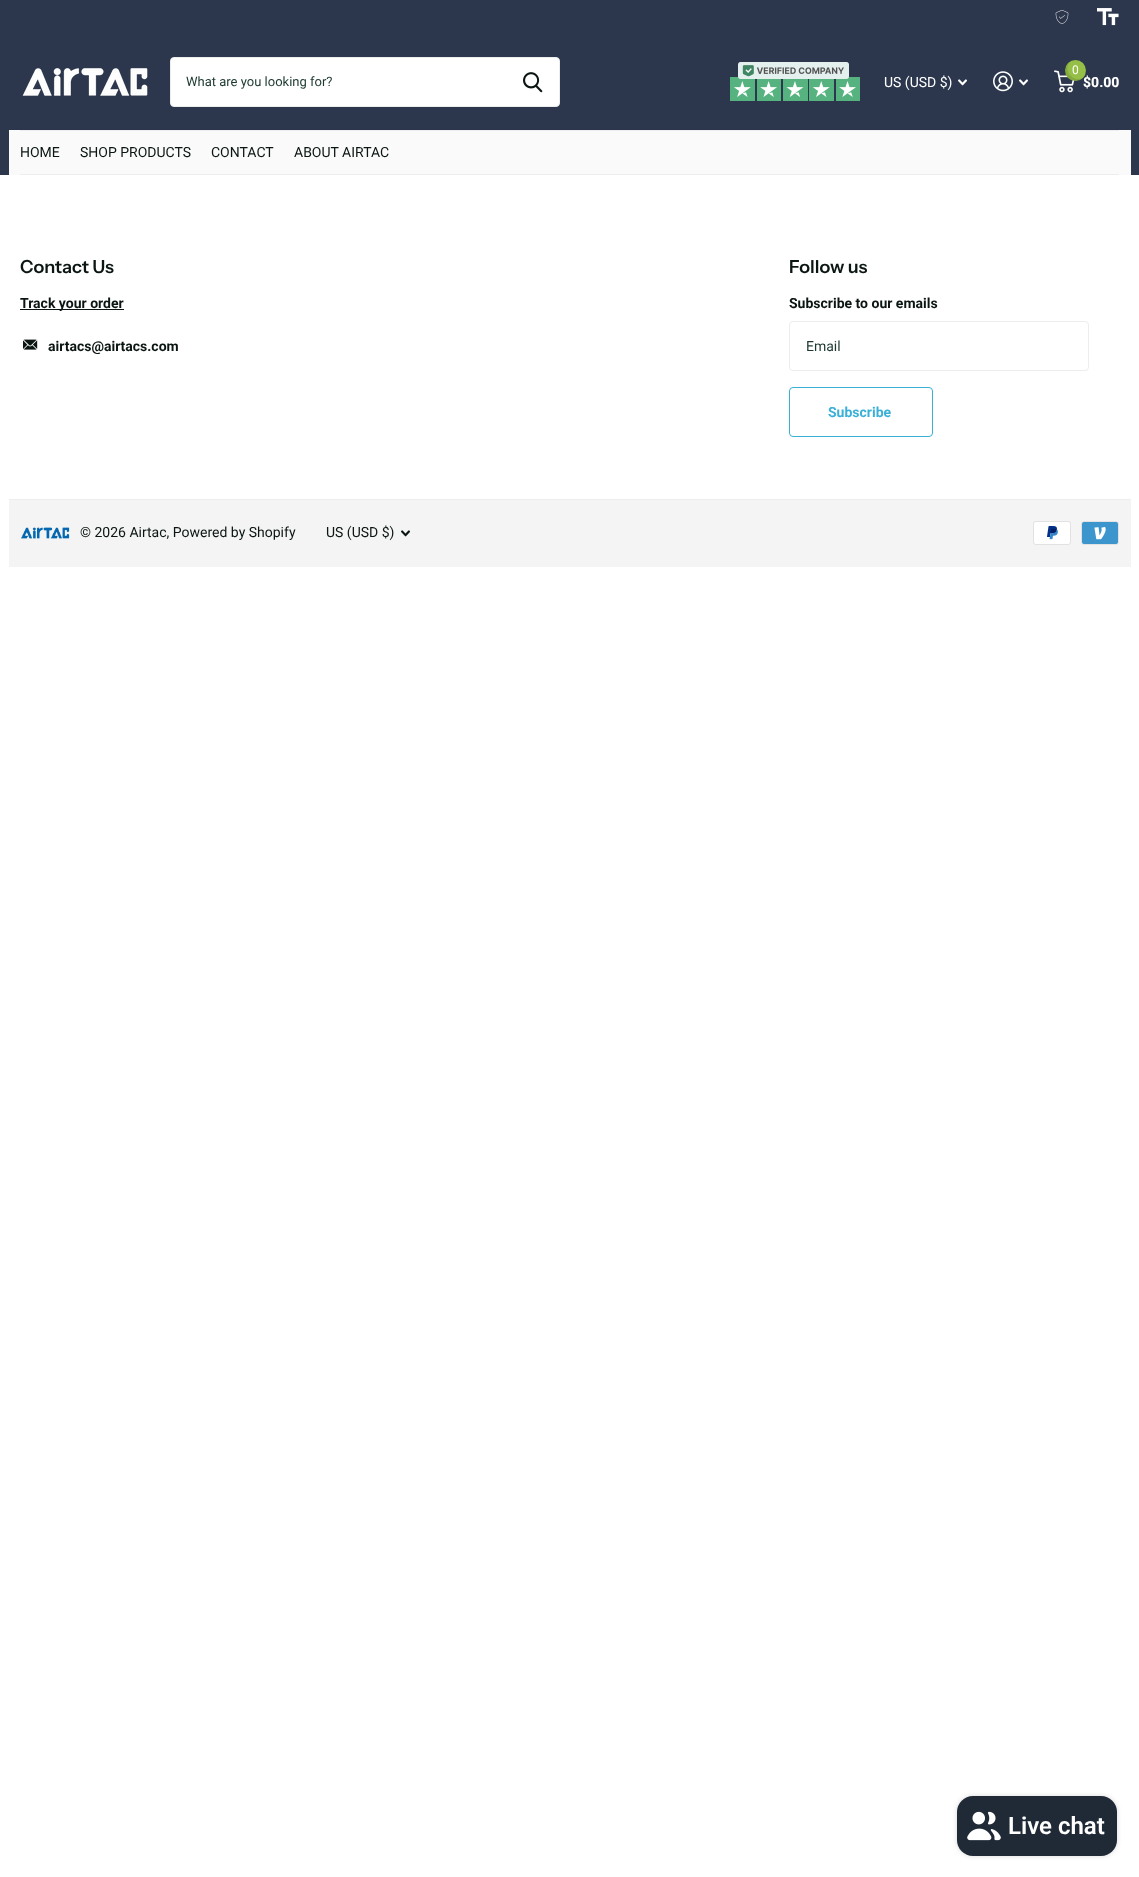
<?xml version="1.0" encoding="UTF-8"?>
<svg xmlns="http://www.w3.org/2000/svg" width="1139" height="1877">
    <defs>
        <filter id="blur1" x="-50%" y="-200%" width="200%" height="500%"><feGaussianBlur stdDeviation="2.5"/></filter>
    </defs>
    <rect width="100%" height="100%" fill="#FFFFFF"/>
    <rect x="0" y="0" width="1139" height="175" fill="#2C374D"/>
    <image x="1055" y="10" width="14" height="14" href="img_01.png"/>
    <image x="1097" y="8" width="22" height="18" href="img_02.png"/>
    <image x="22" y="68" width="126" height="28" href="img_03.png"/>
    <rect x="170.5" y="57.5" width="389" height="49" rx="3.5" fill="#FFFFFF" stroke="#ECEDEC"/>
    <text x="186" y="86" font-family="Roboto" font-size="13" fill="#1C3830">What are you looking for?</text>
    <image x="523" y="72" width="20" height="21" href="img_04.png"/>
    <image x="730" y="62" width="130" height="39" href="img_05.png"/>
    <text x="884" y="87" font-family="Roboto" font-size="14" fill="#FFFFFF">US (USD $)</text>
    <image x="958" y="79" width="9" height="7" href="img_06.png"/>
    <image x="993" y="71" width="20" height="21" href="img_07.png"/>
    <image x="1019" y="79" width="9" height="7" href="img_06.png"/>
    <image x="1054" y="70" width="21" height="23" href="img_08.png"/>
    <text x="1083" y="87" font-family="Roboto" font-size="14" font-weight="800" fill="#FFFFFF">$0.00</text>
    <circle cx="1075.5" cy="70.5" r="10.5" fill="#95BF47"/>
    <path d="M 1083.5 77.5 C 1074 83.5 1062.5 71 1070 61.5 C 1064.5 65.5 1063.5 73 1068 78 C 1072.5 82 1079.5 82 1083.5 77.5 Z" fill="#000000" fill-opacity="0.1"/>
    <text x="1072" y="74" font-family="Roboto" font-size="12" fill="#FFFFFF">0</text>
    <rect x="9" y="130" width="1122" height="45" fill="#FAFAFA"/>
    <rect x="20" y="130" width="1099" height="1" fill="#ECEDEC"/>
    <rect x="20" y="174" width="1099" height="1" fill="#ECEDEC"/>
    <text x="20" y="157" font-family="Roboto" font-size="14" fill="#0B1613">HOME</text>
    <text x="80" y="157" font-family="Roboto" font-size="14" fill="#0B1613">SHOP PRODUCTS</text>
    <text x="211" y="157" font-family="Roboto" font-size="14" fill="#0B1613">CONTACT</text>
    <text x="294" y="157" font-family="Roboto" font-size="14" fill="#0B1613">ABOUT AIRTAC</text>
    <text x="20" y="273" font-family="Instrument Sans" font-size="18" font-weight="600" fill="#0B1613">Contact Us</text>
    <rect x="20" y="309" width="104" height="1" fill="#0B1613"/>
    <text x="20" y="308" font-family="Roboto" font-size="14" font-weight="700" fill="#0B1613">Track your order</text>
    <image x="23" y="339" width="15" height="11" href="img_09.png"/>
    <text x="48" y="351" font-family="Roboto" font-size="14" font-weight="700" fill="#0B1613">airtacs@airtacs.com</text>
    <text x="789" y="273" font-family="Instrument Sans" font-size="18" font-weight="600" fill="#0B1613">Follow us</text>
    <text x="789" y="308" font-family="Roboto" font-size="14" font-weight="700" fill="#0B1613">Subscribe to our emails</text>
    <rect x="789.5" y="321.5" width="299" height="49" rx="3.5" fill="none" stroke="#ECEDEC"/>
    <text x="806" y="351" font-family="Roboto" font-size="14" fill="#1C3830">Email</text>
    <rect x="789.5" y="387.5" width="143" height="49" rx="3.5" fill="none" stroke="#3AB0D8"/>
    <text x="828" y="417" font-family="Roboto" font-size="14" font-weight="700" fill="#3AB0D8">Subscribe</text>
    <rect x="9" y="500" width="1122" height="67" fill="#F4F4F4"/>
    <rect x="9" y="499" width="1122" height="1" fill="#ECEDEC"/>
    <image x="21" y="527" width="49" height="12" href="img_10.png"/>
    <text x="80" y="537" font-family="Roboto" font-size="14" fill="#0B1613">© 2026 Airtac, Powered by Shopify</text>
    <text x="326" y="537" font-family="Roboto" font-size="14" fill="#0B1613">US (USD $)</text>
    <image x="401" y="530" width="9" height="7" href="img_11.png"/>
    <image x="1033" y="521" width="38" height="24" href="img_12.png"/>
    <image x="1081" y="521" width="38" height="24" href="img_13.png"/>
    <rect x="957" y="1796" width="160" height="60" rx="16" fill="#000000" fill-opacity="0.15" filter="url(#blur1)"/>
    <rect x="957" y="1796" width="160" height="60" rx="16" fill="#202A36"/>
    <image x="967" y="1811" width="34" height="30" href="img_14.png"/>
    <text x="1008" y="1834" font-family="Roboto" font-size="24" font-weight="600" fill="#FFFFFF">Live chat</text>
</svg>
